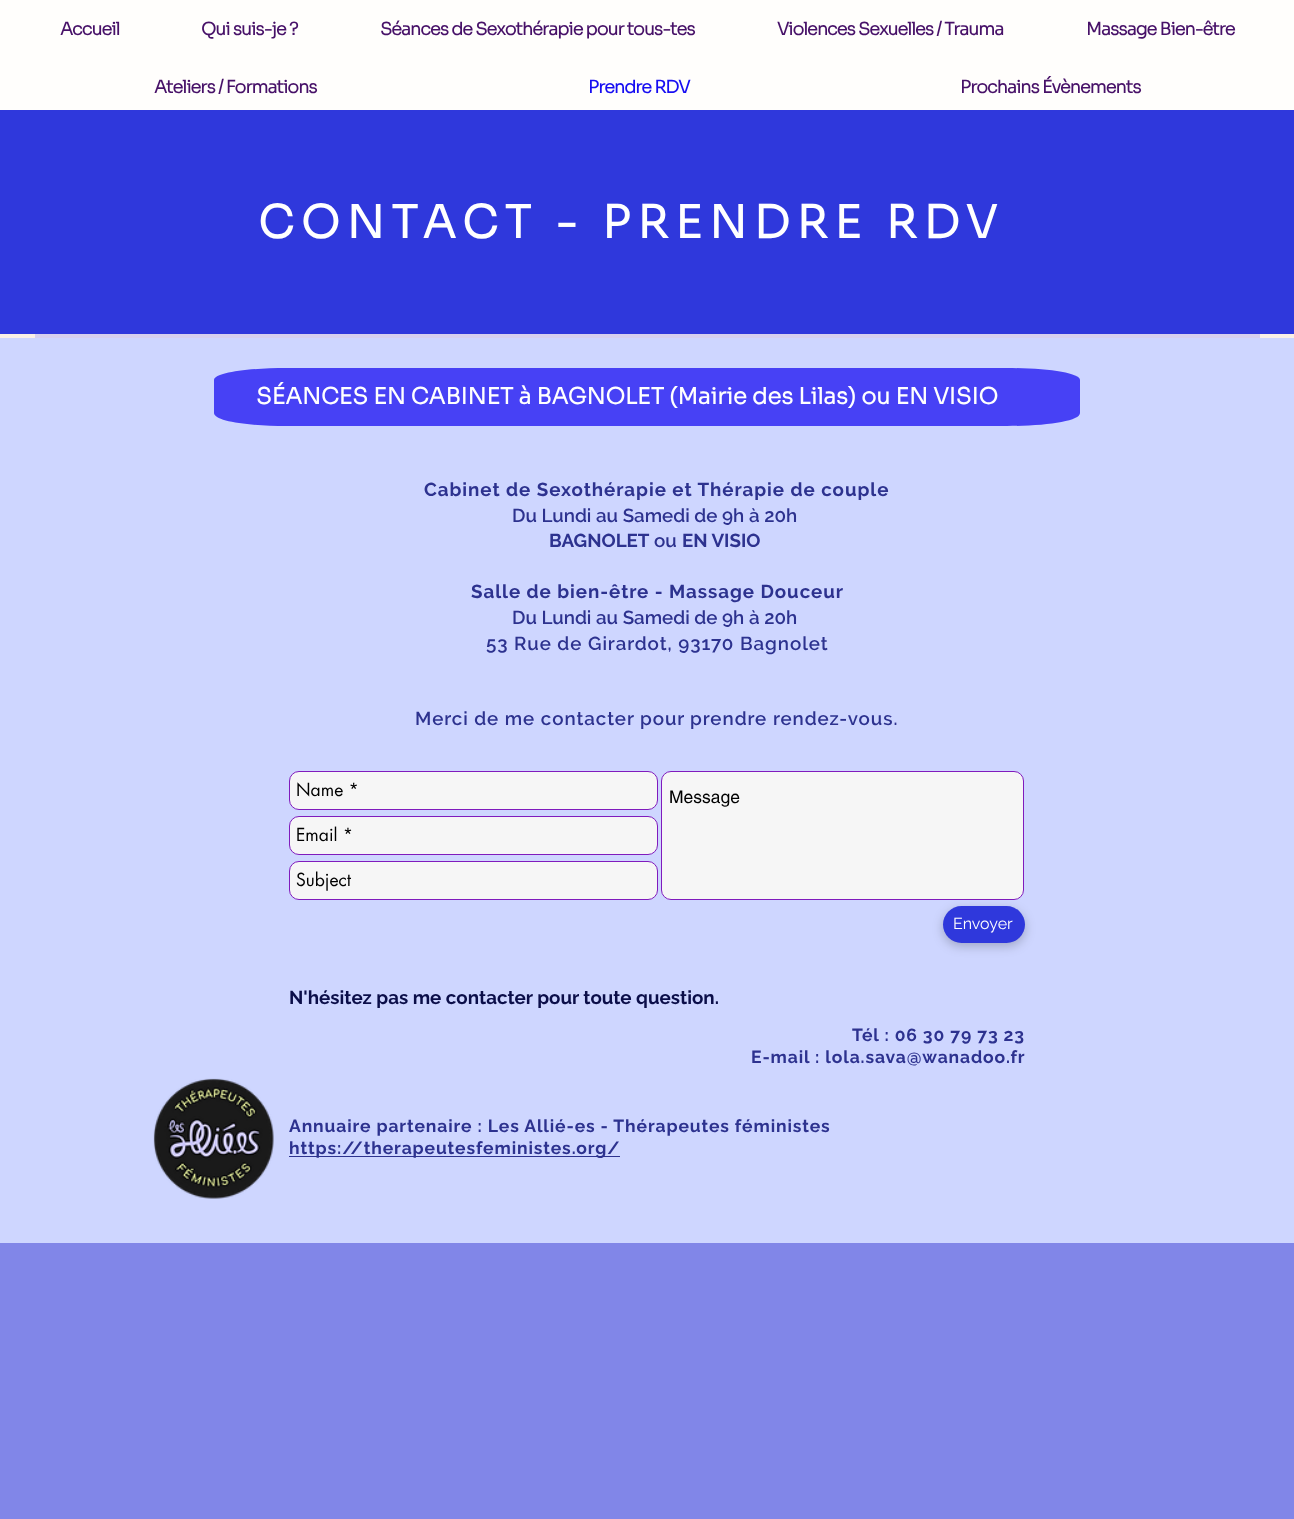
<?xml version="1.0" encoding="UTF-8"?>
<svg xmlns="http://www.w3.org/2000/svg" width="1294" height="1519">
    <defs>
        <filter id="blur1" x="-50%" y="-200%" width="200%" height="500%"><feGaussianBlur stdDeviation="5.5"/></filter>
    </defs>
    <rect width="100%" height="100%" fill="#FAF0E6"/>
    <rect x="0" y="0" width="1294" height="110" fill="#FFFEFC"/>
    <text x="60" y="35" font-family="Sora" font-size="17.5" font-weight="700" letter-spacing="-0.9" fill="#471168">Accueil</text>
    <text x="201" y="35" font-family="Sora" font-size="17.5" font-weight="700" letter-spacing="-0.9" fill="#471168">Qui suis-je ?</text>
    <text x="380" y="35" font-family="Sora" font-size="17.5" font-weight="700" letter-spacing="-0.9" fill="#471168">Séances de Sexothérapie pour tous-tes</text>
    <text x="777" y="35" font-family="Sora" font-size="17.5" font-weight="700" letter-spacing="-0.9" fill="#471168">Violences Sexuelles / Trauma</text>
    <text x="1086" y="35" font-family="Sora" font-size="17.5" font-weight="700" letter-spacing="-0.9" fill="#471168">Massage Bien-être</text>
    <text x="154" y="93" font-family="Sora" font-size="17.5" font-weight="700" letter-spacing="-0.9" fill="#471168">Ateliers / Formations</text>
    <text x="588" y="93" font-family="Sora" font-size="17.5" font-weight="700" letter-spacing="-0.9" fill="#170DF2">Prendre RDV</text>
    <text x="960" y="93" font-family="Sora" font-size="17.5" font-weight="700" letter-spacing="-0.9" fill="#471168">Prochains Évènements</text>
    <rect x="0" y="110" width="1294" height="224" fill="#2F38DC"/>
    <text x="258" y="238" font-family="Sora" font-size="45" font-weight="700" letter-spacing="6.9" fill="#FFFFFF">CONTACT - PRENDRE RDV</text>
    <rect x="0" y="338" width="1294" height="905" fill="#CED6FF"/>
    <path d="M 1007 426 H 287 C 247 426 214 421 214 413 V 380 C 214 373 246 368 287 368 H 1007 C 1047 368 1080 373 1080 380 V 413 C 1080 421 1047 426 1007 426 Z" fill="#4741F5"/>
    <text x="256" y="404" font-family="Sora" font-size="22.5" font-weight="700" fill="#FFFFFF">SÉANCES EN CABINET à BAGNOLET (Mairie des Lilas) ou EN VISIO</text>
    <text x="424" y="496" font-family="Raleway" font-size="18.75" font-weight="700" letter-spacing="0.95" fill="#2D328F">Cabinet de Sexothérapie et Thérapie de couple</text>
    <text x="512" y="522" font-family="Raleway" font-size="18.75" font-weight="600" fill="#2D328F">Du Lundi au Samedi de 9h à 20h</text>
    <text x="549" y="547" font-family="Raleway" font-size="18.75" font-weight="700" fill="#2D328F">BAGNOLET</text>
    <text x="654" y="547" font-family="Raleway" font-size="18.75" font-weight="600" fill="#2D328F">ou</text>
    <text x="682" y="547" font-family="Raleway" font-size="18.75" font-weight="700" fill="#2D328F">EN VISIO</text>
    <text x="471" y="598" font-family="Raleway" font-size="18.75" font-weight="700" letter-spacing="0.95" fill="#2D328F">Salle de bien-être - Massage Douceur</text>
    <text x="512" y="624" font-family="Raleway" font-size="18.75" font-weight="600" fill="#2D328F">Du Lundi au Samedi de 9h à 20h</text>
    <text x="486" y="650" font-family="Raleway" font-size="18.75" font-weight="600" letter-spacing="0.95" fill="#2D328F">53 Rue de Girardot, 93170 Bagnolet</text>
    <text x="415" y="725" font-family="Raleway" font-size="18.75" font-weight="600" letter-spacing="0.95" fill="#2D328F">Merci de me contacter pour</text>
    <text x="690" y="725" font-family="Raleway" font-size="18.75" font-weight="600" letter-spacing="1" fill="#2D328F">prendre</text>
    <text x="773" y="725" font-family="Raleway" font-size="18.75" font-weight="600" letter-spacing="0.95" fill="#2D328F">rendez-vous.</text>
    <rect x="289.5" y="771.5" width="368" height="38" rx="9.5" fill="#F6F6F6" stroke="#801BBD"/>
    <text x="296" y="796" font-family="futura" font-size="17.5" fill="#000000">Name *</text>
    <rect x="661.5" y="771.5" width="362" height="128" rx="9.5" fill="#F6F6F6" stroke="#801BBD"/>
    <text x="669" y="803" font-family="helvetica" font-size="17.5" fill="#000000">Message</text>
    <rect x="289.5" y="816.5" width="368" height="38" rx="9.5" fill="#F6F6F6" stroke="#801BBD"/>
    <text x="296" y="841" font-family="futura" font-size="17.5" fill="#000000">Email *</text>
    <rect x="289.5" y="861.5" width="368" height="38" rx="9.5" fill="#F6F6F6" stroke="#801BBD"/>
    <text x="296" y="886" font-family="futura" font-size="17.5" fill="#000000">Subject</text>
    <rect x="943" y="910" width="82" height="36" rx="18" fill="#000000" fill-opacity="0.23" filter="url(#blur1)"/>
    <rect x="943" y="906" width="82" height="37" rx="18.5" fill="#2F38DC"/>
    <text x="953" y="929" font-family="Raleway" font-size="16" fill="#FFFFFF">Envoyer</text>
    <text x="289" y="1004" font-family="'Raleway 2'" font-size="18.75" font-weight="700" fill="#0B0E49">N'hésitez pas me contacter pour toute question.</text>
    <image x="153" y="1078" width="121" height="121" href="img_01.png"/>
    <text x="852" y="1041" font-family="'Raleway 2'" font-size="17.5" font-weight="700" letter-spacing="0.88" fill="#2D328F">Tél : 06 30 79 73 23</text>
    <text x="751" y="1063" font-family="'Raleway 2'" font-size="17.5" font-weight="700" letter-spacing="0.88" fill="#2D328F">E-mail : lola.sava@wanadoo.fr</text>
    <text x="289" y="1132" font-family="'Raleway 2'" font-size="17.5" font-weight="700" letter-spacing="0.88" fill="#2D328F">Annuaire partenaire : Les Allié-es - Thérapeutes féministes</text>
    <rect x="289" y="1156" width="331" height="1" fill="#2D328F"/>
    <text x="289" y="1154" font-family="'Raleway 2'" font-size="17.5" font-weight="700" letter-spacing="0.88" fill="#2D328F">https://therapeutesfeministes.org/</text>
    <rect x="0" y="1243" width="1294" height="276" fill="#8186E8"/>
    <rect x="35" y="334" width="1225" height="4" fill="#D6D0EF"/>
</svg>
